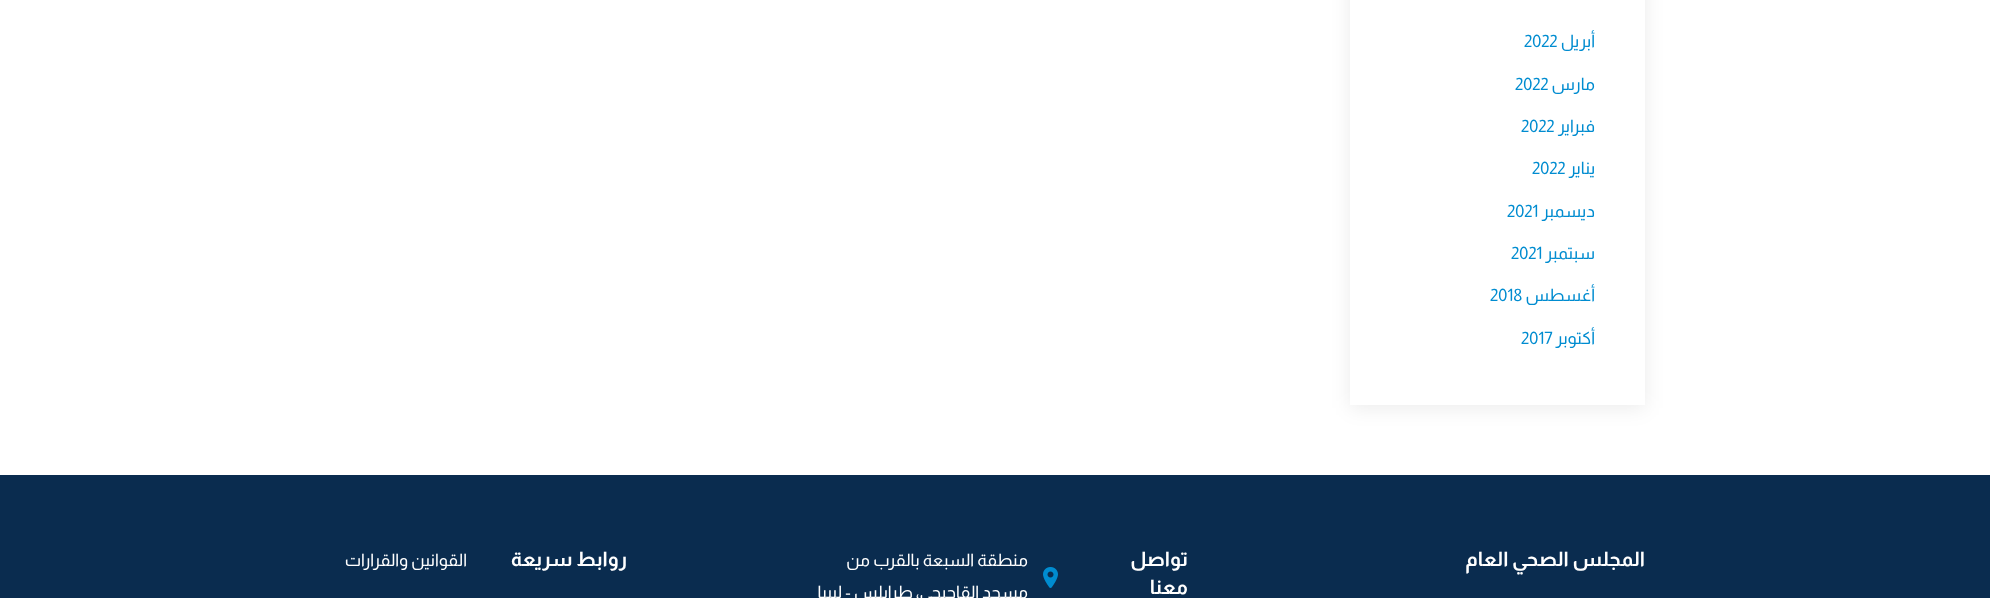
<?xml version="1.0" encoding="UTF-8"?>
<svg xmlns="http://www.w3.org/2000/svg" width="1990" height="598">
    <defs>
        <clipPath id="clip1"><path d="M 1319 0 H 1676 V 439 H 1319 Z M 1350 -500 H 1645 V 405 H 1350 Z" clip-rule="evenodd"/></clipPath>
        <filter id="blur1" x="-50%" y="-200%" width="200%" height="500%"><feGaussianBlur stdDeviation="10"/></filter>
    </defs>
    <rect width="100%" height="100%" fill="#FFFFFF"/>
    <g clip-path="url(#clip1)">
        <rect x="1350" y="-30" width="295" height="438" fill="#000000" fill-opacity="0.08" filter="url(#blur1)"/>
    </g>
    <text x="1595" y="47" font-family="Almarai" font-size="17" direction="rtl" fill="#008CD0">أبريل</text>
    <text x="1524" y="47" font-family="Almarai" font-size="17" fill="#008CD0">2022</text>
    <text x="1595" y="90" font-family="Almarai" font-size="17" direction="rtl" fill="#008CD0">مارس</text>
    <text x="1515" y="90" font-family="Almarai" font-size="17" fill="#008CD0">2022</text>
    <text x="1595" y="132" font-family="Almarai" font-size="17" direction="rtl" fill="#008CD0">فبراير</text>
    <text x="1521" y="132" font-family="Almarai" font-size="17" fill="#008CD0">2022</text>
    <text x="1595" y="174" font-family="Almarai" font-size="17" direction="rtl" fill="#008CD0">يناير</text>
    <text x="1532" y="174" font-family="Almarai" font-size="17" fill="#008CD0">2022</text>
    <text x="1595" y="217" font-family="Almarai" font-size="17" direction="rtl" fill="#008CD0">ديسمبر</text>
    <text x="1507" y="217" font-family="Almarai" font-size="17" fill="#008CD0">2021</text>
    <text x="1595" y="259" font-family="Almarai" font-size="17" direction="rtl" fill="#008CD0">سبتمبر</text>
    <text x="1511" y="259" font-family="Almarai" font-size="17" fill="#008CD0">2021</text>
    <text x="1595" y="301" font-family="Almarai" font-size="17" direction="rtl" fill="#008CD0">أغسطس</text>
    <text x="1490" y="301" font-family="Almarai" font-size="17" fill="#008CD0">2018</text>
    <text x="1595" y="344" font-family="Almarai" font-size="17" direction="rtl" fill="#008CD0">أكتوبر</text>
    <text x="1521" y="344" font-family="Almarai" font-size="17" fill="#008CD0">2017</text>
    <rect x="0" y="475" width="1990" height="123" fill="#0A2C4F"/>
    <text x="1645" y="566" font-family="Almarai" font-size="20" font-weight="700" direction="rtl" fill="#FFFFFF">المجلس الصحي العام</text>
    <text font-family="Almarai" font-size="20" font-weight="700" direction="rtl" fill="#FFFFFF">
        <tspan x="1188" y="566">تواصل</tspan>
        <tspan x="1188" y="594">معنا</tspan>
    </text>
    <image x="1043" y="567" width="15" height="21" href="img_01.png"/>
    <text font-family="Almarai" font-size="17" direction="rtl" fill="#FFFFFF">
        <tspan x="1028" y="566">منطقة السبعة بالقرب من</tspan>
        <tspan x="1028" y="598">مسجد القاجيجي، طرابلس - ليبيا</tspan>
    </text>
    <text x="627" y="566" font-family="Almarai" font-size="20" font-weight="700" direction="rtl" fill="#FFFFFF">روابط سريعة</text>
    <text x="467" y="566" font-family="Almarai" font-size="17" direction="rtl" fill="#FFFFFF">القوانين والقرارات</text>
</svg>
